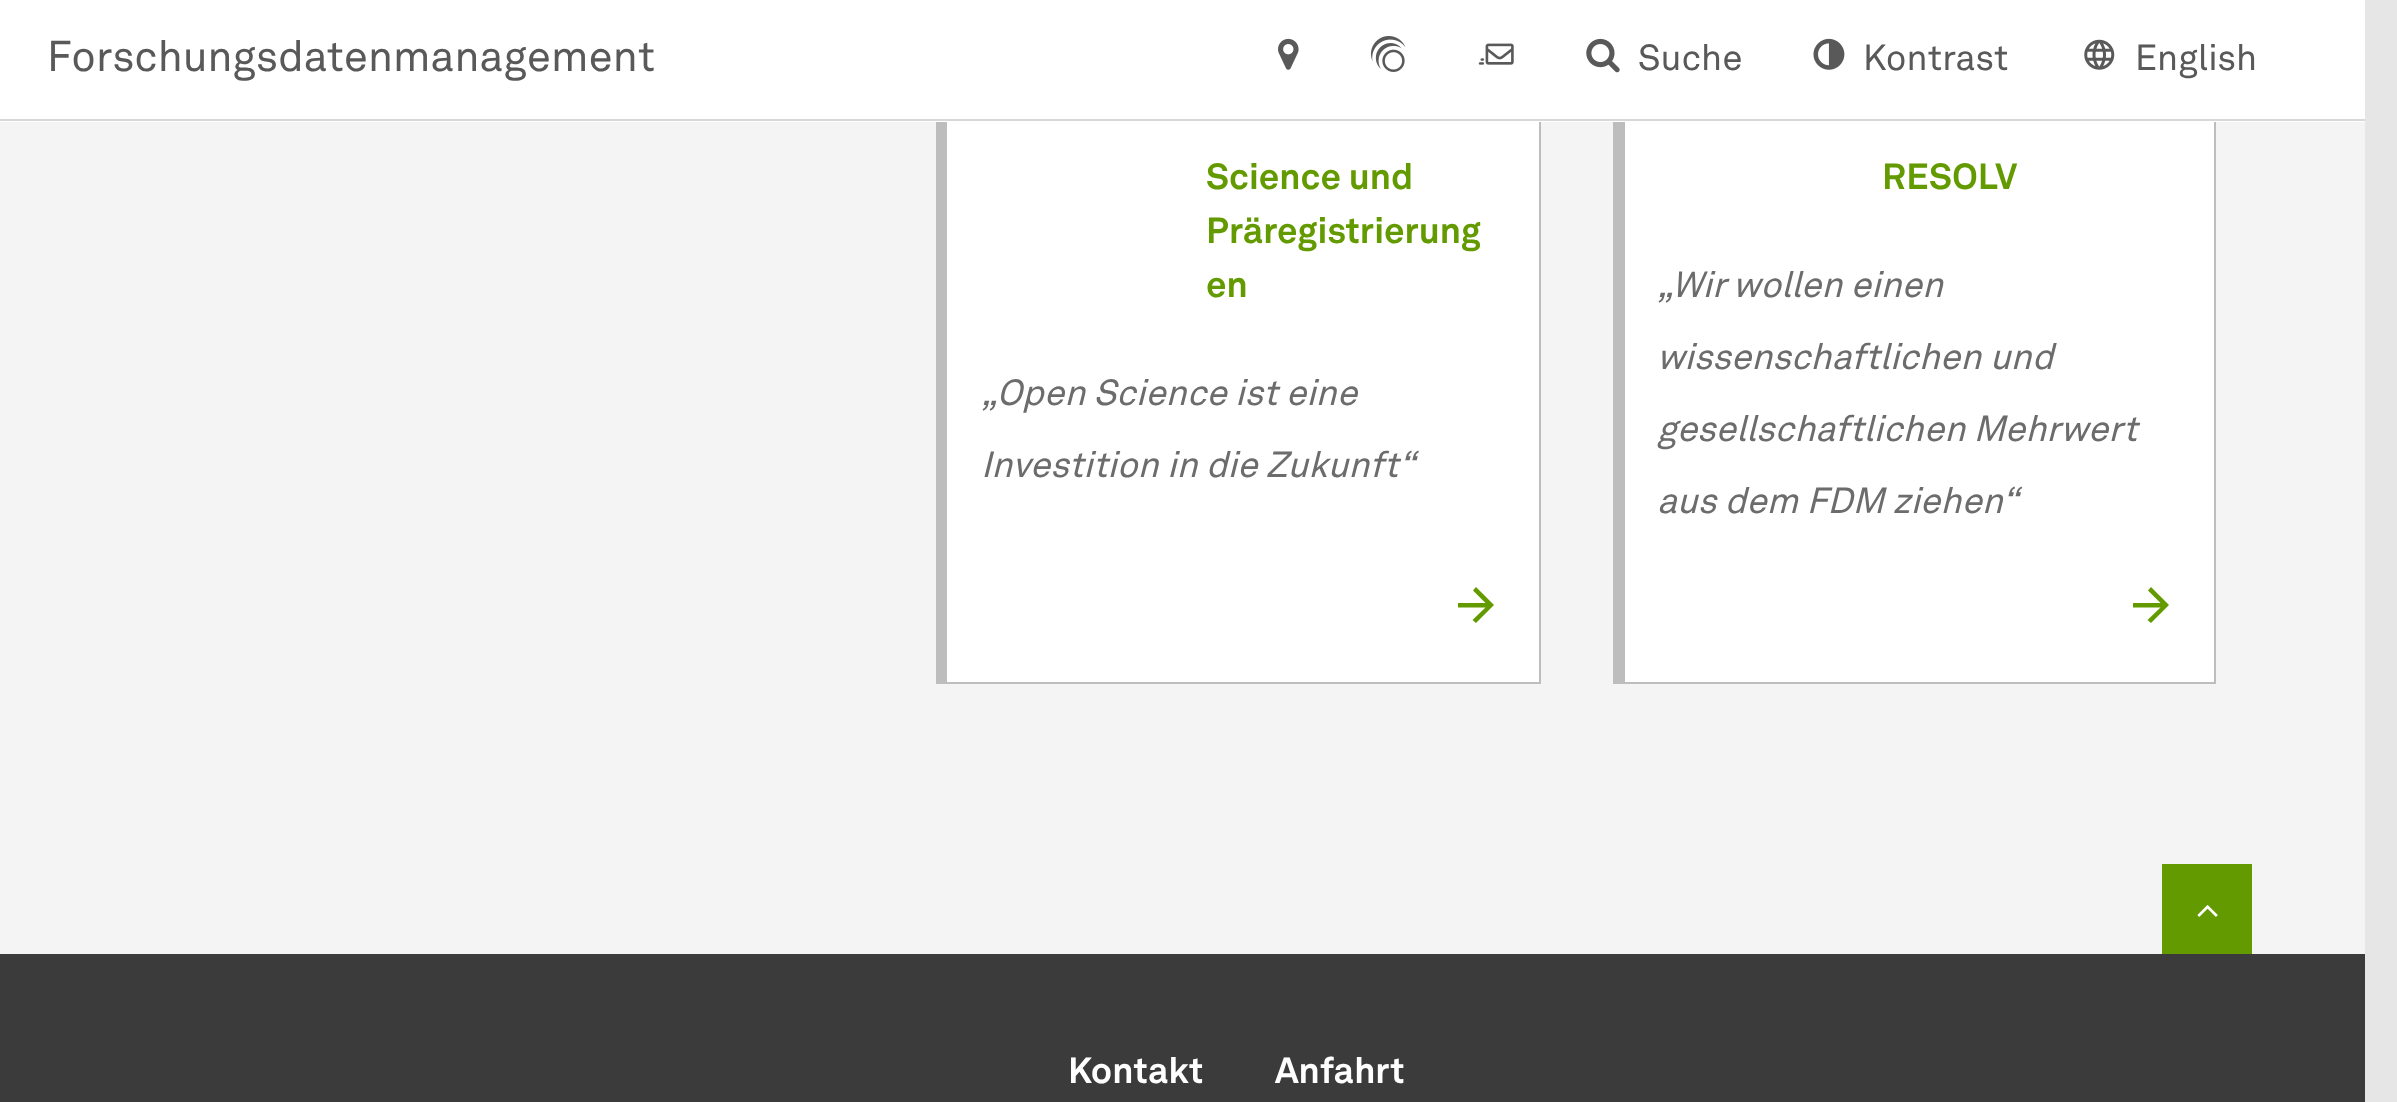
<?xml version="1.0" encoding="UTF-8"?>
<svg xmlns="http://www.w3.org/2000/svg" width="2397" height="1102">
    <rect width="100%" height="100%" fill="#E6E6E6"/>
    <rect x="0" y="0" width="2365" height="122" fill="#FFFFFF"/>
    <rect x="0" y="119" width="2365" height="2" fill="#D8D8D8"/>
    <text x="47" y="71" font-family="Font" font-size="42.75" fill="#595959">Forschungsdatenmanagement</text>
    <image x="1278" y="38" width="21" height="32" href="img_01.png"/>
    <image x="1370" y="36" width="36" height="36" href="img_02.png"/>
    <image x="1478" y="43" width="36" height="22" href="img_03.png"/>
    <image x="1586" y="38" width="34" height="35" href="img_04.png"/>
    <text x="1638" y="70" font-family="Font" font-size="36" fill="#595959">Suche</text>
    <image x="1813" y="38" width="32" height="32" href="img_05.png"/>
    <text x="1863" y="70" font-family="Font" font-size="36" fill="#595959">Kontrast</text>
    <image x="2084" y="39" width="31" height="31" href="img_06.png"/>
    <text x="2135" y="70" font-family="Font" font-size="36" fill="#595959">English</text>
    <rect x="0" y="122" width="2365" height="832" fill="#F4F4F4"/>
    <rect x="947" y="122" width="592" height="560" fill="#FFFFFF"/>
    <rect x="936" y="122" width="11" height="560" fill="#BDBDBD"/>
    <rect x="1539" y="122" width="2" height="562" fill="#BDBDBD"/>
    <rect x="936" y="682" width="605" height="2" fill="#BDBDBD"/>
    <text font-family="Font" font-size="36" font-weight="700" fill="#639A00">
        <tspan x="1206" y="189">Science und</tspan>
        <tspan x="1206" y="243">Präregistrierung</tspan>
        <tspan x="1206" y="297">en</tspan>
    </text>
    <text x="981" y="405" font-family="Font" font-size="36" font-style="italic" fill="#6C6C6C">„Open Science ist eine</text>
    <text x="981" y="477" font-family="Font" font-size="36" font-style="italic" fill="#6C6C6C">Investition in die Zukunft“</text>
    <path d="M 1458 607.5 V 603 H 1485.5 L 1473 590.5 L 1476 587 L 1494 605 L 1476 623 L 1472.5 620 L 1485.5 607.5 Z" fill="#639A00"/>
    <rect x="1625" y="122" width="589" height="560" fill="#FFFFFF"/>
    <rect x="1613" y="122" width="12" height="560" fill="#BDBDBD"/>
    <rect x="2214" y="122" width="2" height="562" fill="#BDBDBD"/>
    <rect x="1613" y="682" width="603" height="2" fill="#BDBDBD"/>
    <text x="1882" y="189" font-family="Font" font-size="36" font-weight="700" fill="#639A00">RESOLV</text>
    <text x="1657" y="297" font-family="Font" font-size="36" font-style="italic" fill="#6C6C6C">„Wir wollen einen</text>
    <text x="1657" y="369" font-family="Font" font-size="36" font-style="italic" fill="#6C6C6C">wissenschaftlichen und</text>
    <text x="1657" y="441" font-family="Font" font-size="36" font-style="italic" fill="#6C6C6C">gesellschaftlichen Mehrwert</text>
    <text x="1657" y="513" font-family="Font" font-size="36" font-style="italic" fill="#6C6C6C">aus dem FDM ziehen“</text>
    <path d="M 2133 607.5 V 603 H 2160.5 L 2148 590.5 L 2151 587 L 2169 605 L 2151 623 L 2147.5 620 L 2160.5 607.5 Z" fill="#639A00"/>
    <rect x="2162" y="864" width="90" height="90" fill="#639A00"/>
    <image x="2197" y="905" width="21" height="12" href="img_07.png"/>
    <rect x="0" y="954" width="2365" height="148" fill="#3B3B3B"/>
    <text x="1068" y="1083" font-family="Font" font-size="36" font-weight="700" fill="#FFFFFF">Kontakt</text>
    <text x="1275" y="1083" font-family="Font" font-size="36" font-weight="700" fill="#FFFFFF">Anfahrt</text>
</svg>
